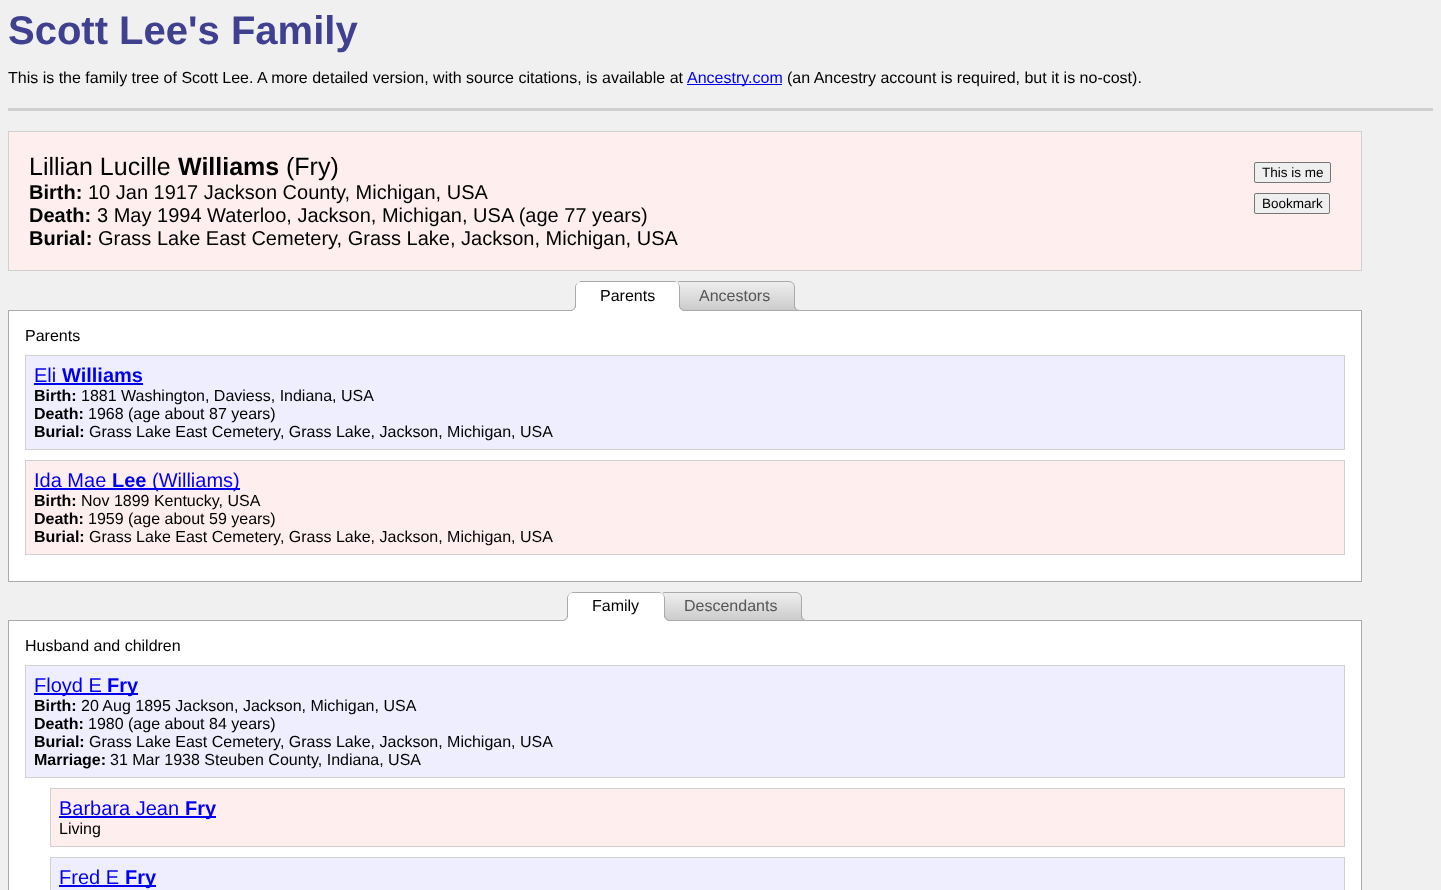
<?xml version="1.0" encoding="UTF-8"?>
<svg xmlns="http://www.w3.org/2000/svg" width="1441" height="890">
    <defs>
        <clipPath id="clip1"><path d="M 680 281 H 789 C 792.5 281 795 283.5 795 287 V 311 H 674 V 287 C 674 283.5 676.5 281 680 281 Z"/></clipPath>
        <linearGradient id="g1" gradientUnits="userSpaceOnUse" x1="735" y1="282" x2="735" y2="310"><stop offset="0" stop-color="#EEEEEE"/><stop offset="1" stop-color="#CCCCCC"/></linearGradient>
        <clipPath id="clip2"><rect x="8" y="281" width="1354" height="30"/></clipPath>
        <clipPath id="clip3"><path d="M 665 592 H 796 C 799.5 592 802 594.5 802 598 V 621 H 659 V 598 C 659 594.5 661.5 592 665 592 Z"/></clipPath>
        <linearGradient id="g2" gradientUnits="userSpaceOnUse" x1="731" y1="593" x2="731" y2="620"><stop offset="0" stop-color="#EEEEEE"/><stop offset="1" stop-color="#CCCCCC"/></linearGradient>
        <clipPath id="clip4"><rect x="8" y="592" width="1354" height="29"/></clipPath>
    </defs>
    <rect width="100%" height="100%" fill="#F0F0F0"/>
    <rect x="8" y="108" width="1425" height="3" fill="#D0D0D0"/>
    <text x="8" y="44" font-family="Liberation Sans" font-size="40" font-weight="700" fill="#404090">Scott Lee's Family</text>
    <text x="8" y="83" font-family="Liberation Sans" font-size="16" fill="#000000">This is the family tree of Scott Lee. A more detailed version, with source citations, is available at</text>
    <rect x="687" y="84" width="95" height="1" fill="#0000EE"/>
    <text x="687" y="83" font-family="Liberation Sans" font-size="16" fill="#0000EE">Ancestry.com</text>
    <text x="787" y="83" font-family="Liberation Sans" font-size="16" fill="#000000">(an Ancestry account is required, but it is no-cost).</text>
    <rect x="8.5" y="131.5" width="1353" height="139" fill="#FFEEEE" stroke="#D0D0D0"/>
    <text x="29" y="175" font-family="Liberation Sans" font-size="25" fill="#000000">Lillian Lucille</text>
    <text x="178" y="175" font-family="Liberation Sans" font-size="25" font-weight="700" fill="#000000">Williams</text>
    <text x="286" y="175" font-family="Liberation Sans" font-size="25" fill="#000000">(Fry)</text>
    <text x="29" y="199" font-family="Liberation Sans" font-size="20" font-weight="700" fill="#000000">Birth:</text>
    <text x="88" y="199" font-family="Liberation Sans" font-size="20" fill="#000000">10 Jan 1917 Jackson County, Michigan, USA</text>
    <text x="29" y="222" font-family="Liberation Sans" font-size="20" font-weight="700" fill="#000000">Death:</text>
    <text x="97" y="222" font-family="Liberation Sans" font-size="20" fill="#000000">3 May 1994 Waterloo, Jackson, Michigan, USA (age 77 years)</text>
    <text x="29" y="245" font-family="Liberation Sans" font-size="20" font-weight="700" fill="#000000">Burial:</text>
    <text x="98" y="245" font-family="Liberation Sans" font-size="20" fill="#000000">Grass Lake East Cemetery, Grass Lake, Jackson, Michigan, USA</text>
    <rect x="1254.5" y="162.5" width="76" height="20" rx="1.5" fill="#EFEFEF" stroke="#767676"/>
    <text x="1262" y="177" font-family="Liberation Sans" font-size="13.5" fill="#000000">This is me</text>
    <rect x="1254.5" y="193.5" width="75" height="20" rx="1.5" fill="#EFEFEF" stroke="#767676"/>
    <text x="1262" y="208" font-family="Liberation Sans" font-size="13.5" fill="#000000">Bookmark</text>
    <g clip-path="url(#clip1)">
        <rect x="677" y="282" width="118" height="28" fill="url(#g1)"/>
    </g>
    <path d="M 680 281.5 H 789 C 792 281.5 794.5 284 794.5 287 V 310.5 H 674.5 V 287 C 674.5 284 677 281.5 680 281.5 Z" fill="none" stroke="#AAAAAA"/>
    <g clip-path="url(#clip2)">
        <path d="M 792 307 C 792 310.5 794.5 313 798 313 V 310.5 C 796.5 310 795 308.5 794.5 307 Z" fill="#CCCCCC"/>
    </g>
    <path d="M 794 305 H 800 V 311 C 796.5 311 794 308.5 794 305 Z M 795 305 H 800 V 310 C 797 310 795 308 795 305 Z" fill="#AAAAAA" fill-rule="evenodd"/>
    <rect x="8" y="310" width="1354" height="1" fill="#AAAAAA"/>
    <path d="M 581 281 H 674 C 677.5 281 680 283.5 680 287 V 311 H 575 V 287 C 575 283.5 577.5 281 581 281 Z" fill="#FFFFFF"/>
    <path d="M 581 281 C 580 281 578 282 577 283 C 578 282 580 282 581 282 H 674 C 676 282 677 282 678 283 C 677 282 676 281 674 281 Z" fill="#AAAAAA"/>
    <path d="M 680 311 V 287 C 680 285.5 679 284 678 283 L 677.5 283.5 C 678.5 284 679 285.5 679 287 V 310 Z" fill="#AAAAAA"/>
    <path d="M 680 311 L 679 310 H 576 L 575 311 Z" fill="#FFFFFF"/>
    <path d="M 575 311 L 576 310 V 287 C 576 285.5 576.5 284 577.5 283.5 L 577 283 C 576 284 575 285.5 575 287 Z" fill="#AAAAAA"/>
    <text x="600" y="301" font-family="Liberation Sans" font-size="16" fill="#000000">Parents</text>
    <g clip-path="url(#clip2)">
        <path d="M 572 310.5 V 313 C 575.5 313 578 310.5 578 307 H 575.5 C 575 308.5 573.5 310 572 310.5 Z" fill="#FFFFFF"/>
    </g>
    <path d="M 570 305 H 576 C 576 308.5 573.5 311 570 311 Z M 570 305 H 575 C 575 308 573 310 570 310 Z" fill="#AAAAAA" fill-rule="evenodd"/>
    <g clip-path="url(#clip2)">
        <path d="M 677 307 C 677 310.5 679.5 313 683 313 V 310.5 C 681.5 310 680 308.5 679.5 307 Z" fill="#FFFFFF"/>
    </g>
    <path d="M 679 305 H 685 V 311 C 681.5 311 679 308.5 679 305 Z M 680 305 H 685 V 310 C 682 310 680 308 680 305 Z" fill="#AAAAAA" fill-rule="evenodd"/>
    <text x="699" y="301" font-family="Liberation Sans" font-size="16" fill="#555555">Ancestors</text>
    <rect x="9" y="311" width="1352" height="270" fill="#FFFFFF"/>
    <rect x="1361" y="311" width="1" height="271" fill="#AAAAAA"/>
    <rect x="8" y="581" width="1354" height="1" fill="#AAAAAA"/>
    <rect x="8" y="311" width="1" height="271" fill="#AAAAAA"/>
    <text x="25" y="341" font-family="Liberation Sans" font-size="16" fill="#000000">Parents</text>
    <rect x="25.5" y="355.5" width="1319" height="94" fill="#EEEEFF" stroke="#D0D0D0"/>
    <text x="34" y="382" font-family="Liberation Sans" font-size="20" fill="#0000EE">Eli</text>
    <text x="62" y="382" font-family="Liberation Sans" font-size="20" font-weight="700" fill="#0000EE">Williams</text>
    <rect x="34" y="383" width="109" height="2" fill="#0000EE"/>
    <text x="34" y="401" font-family="Liberation Sans" font-size="16" font-weight="700" fill="#000000">Birth:</text>
    <text x="81" y="401" font-family="Liberation Sans" font-size="16" fill="#000000">1881 Washington, Daviess, Indiana, USA</text>
    <text x="34" y="419" font-family="Liberation Sans" font-size="16" font-weight="700" fill="#000000">Death:</text>
    <text x="88" y="419" font-family="Liberation Sans" font-size="16" fill="#000000">1968 (age about 87 years)</text>
    <text x="34" y="437" font-family="Liberation Sans" font-size="16" font-weight="700" fill="#000000">Burial:</text>
    <text x="89" y="437" font-family="Liberation Sans" font-size="16" fill="#000000">Grass Lake East Cemetery, Grass Lake, Jackson, Michigan, USA</text>
    <rect x="25.5" y="460.5" width="1319" height="94" fill="#FFEEEE" stroke="#D0D0D0"/>
    <text x="34" y="487" font-family="Liberation Sans" font-size="20" fill="#0000EE">Ida Mae</text>
    <text x="112" y="487" font-family="Liberation Sans" font-size="20" font-weight="700" fill="#0000EE">Lee</text>
    <rect x="34" y="488" width="206" height="2" fill="#0000EE"/>
    <text x="152" y="487" font-family="Liberation Sans" font-size="20" fill="#0000EE">(Williams)</text>
    <text x="34" y="506" font-family="Liberation Sans" font-size="16" font-weight="700" fill="#000000">Birth:</text>
    <text x="81" y="506" font-family="Liberation Sans" font-size="16" fill="#000000">Nov 1899 Kentucky, USA</text>
    <text x="34" y="524" font-family="Liberation Sans" font-size="16" font-weight="700" fill="#000000">Death:</text>
    <text x="88" y="524" font-family="Liberation Sans" font-size="16" fill="#000000">1959 (age about 59 years)</text>
    <text x="34" y="542" font-family="Liberation Sans" font-size="16" font-weight="700" fill="#000000">Burial:</text>
    <text x="89" y="542" font-family="Liberation Sans" font-size="16" fill="#000000">Grass Lake East Cemetery, Grass Lake, Jackson, Michigan, USA</text>
    <g clip-path="url(#clip3)">
        <rect x="662" y="593" width="140" height="27" fill="url(#g2)"/>
    </g>
    <path d="M 665 592.5 H 796 C 799 592.5 801.5 595 801.5 598 V 620.5 H 659.5 V 598 C 659.5 595 662 592.5 665 592.5 Z" fill="none" stroke="#AAAAAA"/>
    <g clip-path="url(#clip4)">
        <path d="M 799 617 C 799 620.5 801.5 623 805 623 V 620.5 C 803.5 620 802 618.5 801.5 617 Z" fill="#CCCCCC"/>
    </g>
    <path d="M 801 615 H 807 V 621 C 803.5 621 801 618.5 801 615 Z M 802 615 H 807 V 620 C 804 620 802 618 802 615 Z" fill="#AAAAAA" fill-rule="evenodd"/>
    <rect x="8" y="620" width="1354" height="1" fill="#AAAAAA"/>
    <path d="M 573 592 H 659 C 662.5 592 665 594.5 665 598 V 621 H 567 V 598 C 567 594.5 569.5 592 573 592 Z" fill="#FFFFFF"/>
    <path d="M 573 592 C 572 592 570 593 569 594 L 572 593 H 660 L 663 594 C 662 593 660 592 659 592 Z" fill="#AAAAAA"/>
    <path d="M 665 621 V 598 C 665 596.5 664 595 663 594 L 662.5 594.5 C 663.5 595 664 596.5 664 598 V 620 Z" fill="#AAAAAA"/>
    <path d="M 665 621 L 664 620 H 568 L 567 621 Z" fill="#FFFFFF"/>
    <path d="M 567 621 L 568 620 V 598 C 568 596.5 568.5 595 569.5 594.5 L 569 594 C 568 595 567 596.5 567 598 Z" fill="#AAAAAA"/>
    <text x="592" y="611" font-family="Liberation Sans" font-size="16" fill="#000000">Family</text>
    <g clip-path="url(#clip4)">
        <path d="M 564 620.5 V 623 C 567.5 623 570 620.5 570 617 H 567.5 C 567 618.5 565.5 620 564 620.5 Z" fill="#FFFFFF"/>
    </g>
    <path d="M 562 615 H 568 C 568 618.5 565.5 621 562 621 Z M 562 615 H 567 C 567 618 565 620 562 620 Z" fill="#AAAAAA" fill-rule="evenodd"/>
    <g clip-path="url(#clip4)">
        <path d="M 662 617 C 662 620.5 664.5 623 668 623 V 620.5 C 666.5 620 665 618.5 664.5 617 Z" fill="#FFFFFF"/>
    </g>
    <path d="M 664 615 H 670 V 621 C 666.5 621 664 618.5 664 615 Z M 665 615 H 670 V 620 C 667 620 665 618 665 615 Z" fill="#AAAAAA" fill-rule="evenodd"/>
    <text x="684" y="611" font-family="Liberation Sans" font-size="16" fill="#555555">Descendants</text>
    <rect x="9" y="621" width="1352" height="269" fill="#FFFFFF"/>
    <rect x="1361" y="621" width="1" height="269" fill="#AAAAAA"/>
    <rect x="8" y="621" width="1" height="269" fill="#AAAAAA"/>
    <text x="25" y="651" font-family="Liberation Sans" font-size="16" fill="#000000">Husband and children</text>
    <rect x="25.5" y="665.5" width="1319" height="112" fill="#EEEEFF" stroke="#D0D0D0"/>
    <rect x="34" y="693" width="104" height="2" fill="#0000EE"/>
    <text x="34" y="692" font-family="Liberation Sans" font-size="20" fill="#0000EE">Floyd E</text>
    <text x="107" y="692" font-family="Liberation Sans" font-size="20" font-weight="700" fill="#0000EE">Fry</text>
    <text x="34" y="711" font-family="Liberation Sans" font-size="16" font-weight="700" fill="#000000">Birth:</text>
    <text x="81" y="711" font-family="Liberation Sans" font-size="16" fill="#000000">20 Aug 1895 Jackson, Jackson, Michigan, USA</text>
    <text x="34" y="729" font-family="Liberation Sans" font-size="16" font-weight="700" fill="#000000">Death:</text>
    <text x="88" y="729" font-family="Liberation Sans" font-size="16" fill="#000000">1980 (age about 84 years)</text>
    <text x="34" y="747" font-family="Liberation Sans" font-size="16" font-weight="700" fill="#000000">Burial:</text>
    <text x="89" y="747" font-family="Liberation Sans" font-size="16" fill="#000000">Grass Lake East Cemetery, Grass Lake, Jackson, Michigan, USA</text>
    <text x="34" y="765" font-family="Liberation Sans" font-size="16" font-weight="700" fill="#000000">Marriage:</text>
    <text x="110" y="765" font-family="Liberation Sans" font-size="16" fill="#000000">31 Mar 1938 Steuben County, Indiana, USA</text>
    <rect x="50.5" y="788.5" width="1294" height="58" fill="#FFEEEE" stroke="#D0D0D0"/>
    <text x="59" y="815" font-family="Liberation Sans" font-size="20" fill="#0000EE">Barbara Jean</text>
    <rect x="59" y="816" width="157" height="2" fill="#0000EE"/>
    <text x="185" y="815" font-family="Liberation Sans" font-size="20" font-weight="700" fill="#0000EE">Fry</text>
    <text x="59" y="834" font-family="Liberation Sans" font-size="16" fill="#000000">Living</text>
    <rect x="50.5" y="857.5" width="1294" height="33" fill="#EEEEFF" stroke="#D0D0D0"/>
    <text x="59" y="884" font-family="Liberation Sans" font-size="20" fill="#0000EE">Fred E</text>
    <rect x="59" y="885" width="97" height="2" fill="#0000EE"/>
    <text x="125" y="884" font-family="Liberation Sans" font-size="20" font-weight="700" fill="#0000EE">Fry</text>
</svg>
